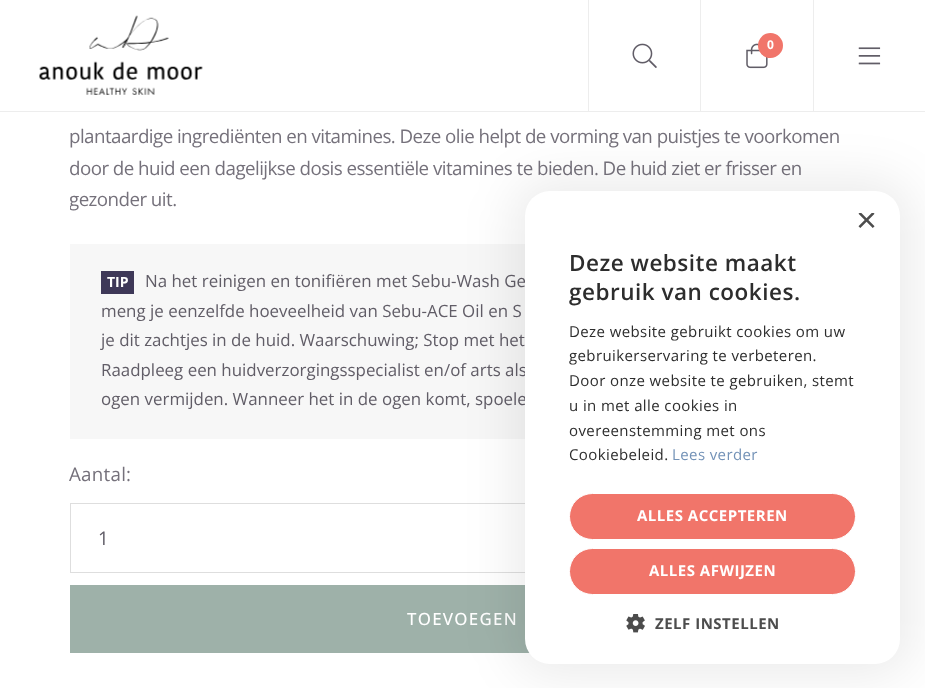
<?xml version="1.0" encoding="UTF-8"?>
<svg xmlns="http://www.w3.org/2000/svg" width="925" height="688">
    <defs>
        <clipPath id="clip1"><rect x="70" y="0" width="786" height="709"/></clipPath>
        <filter id="blur1" x="-50%" y="-200%" width="200%" height="500%"><feGaussianBlur stdDeviation="25"/></filter>
        <clipPath id="clip2"><rect x="856" y="213" width="19" height="18"/></clipPath>
    </defs>
    <rect width="100%" height="100%" fill="#FFFFFF"/>
    <rect x="0" y="111" width="925" height="1" fill="#EDEDED"/>
    <image x="39" y="15" width="164" height="80" href="img_01.png"/>
    <rect x="588" y="0" width="1" height="111" fill="#EDEDED"/>
    <image x="632" y="43" width="25" height="25" href="img_02.png"/>
    <rect x="700" y="0" width="1" height="111" fill="#EDEDED"/>
    <image x="746" y="43" width="22" height="26" href="img_03.png"/>
    <circle cx="770.5" cy="45.5" r="12.5" fill="#F1756A"/>
    <text x="767" y="49" font-family="Open Sans" font-size="12" font-weight="700" fill="#FFFFFF">0</text>
    <rect x="813" y="0" width="1" height="111" fill="#EDEDED"/>
    <image x="858" y="47" width="23" height="18" href="img_04.png"/>
    <text font-family="Open Sans" font-size="18.75" letter-spacing="-0.55" fill="#75717B">
        <tspan x="69" y="143">plantaardige ingrediënten en vitamines. Deze olie helpt de vorming van puistjes te voorkomen</tspan>
        <tspan x="69" y="175">door de huid een dagelijkse dosis essentiële vitamines te bieden. De huid ziet er frisser en</tspan>
    </text>
    <g clip-path="url(#clip1)">
        <text x="69" y="206" font-family="Open Sans" font-size="18.75" letter-spacing="-0.55" fill="#75717B">gezonder uit.</text>
    </g>
    <rect x="70" y="244" width="455" height="195" fill="#F7F7F7"/>
    <rect x="101" y="271" width="33" height="23" fill="#3E3858"/>
    <text x="107" y="287" font-family="Open Sans" font-size="14" font-weight="700" fill="#FFFFFF">TIP</text>
    <text x="145" y="287" font-family="Open Sans" font-size="16.9" fill="#615D67">Na het reinigen en tonifiëren met Sebu-Wash Ge</text>
    <text font-family="Open Sans" font-size="16.9" fill="#615D67">
        <tspan x="101" y="317">meng je eenzelfde hoeveelheid van Sebu-ACE Oil en S</tspan>
        <tspan x="101" y="346">je dit zachtjes in de huid. Waarschuwing; Stop met het</tspan>
        <tspan x="101" y="376">Raadpleeg een huidverzorgingsspecialist en/of arts als</tspan>
        <tspan x="101" y="405">ogen vermijden. Wanneer het in de ogen komt, spoele</tspan>
    </text>
    <text x="69" y="481" font-family="Open Sans" font-size="18.75" letter-spacing="0.25" fill="#75717B">Aantal:</text>
    <rect x="70.5" y="503.5" width="785" height="69" fill="none" stroke="#DEDEDE"/>
    <text x="98" y="545" font-family="Open Sans" font-size="18.75" fill="#615D67">1</text>
    <rect x="70" y="585" width="460" height="68" fill="#9EB1A9"/>
    <text x="407" y="625" font-family="Open Sans" font-size="16.9" font-weight="500" letter-spacing="1.25" fill="#FFFFFF">TOEVOEGEN</text>
    <rect x="513" y="179" width="400" height="497" rx="38" fill="#000000" fill-opacity="0.08" filter="url(#blur1)"/>
    <rect x="525" y="191" width="375" height="473" rx="25" fill="#FFFFFF"/>
    <g clip-path="url(#clip2)">
        <text x="856" y="232" font-family="Liberation Sans" font-size="36" fill="#4D4D4D">×</text>
    </g>
    <text font-family="Open Sans" font-size="22.5" font-weight="600" letter-spacing="0.5" fill="#2D2D2D">
        <tspan x="569" y="271">Deze website maakt</tspan>
        <tspan x="569" y="300">gebruik van cookies.</tspan>
    </text>
    <text font-family="Open Sans" font-size="15" letter-spacing="0.4" fill="#2D2D2D">
        <tspan x="569" y="337">Deze website gebruikt cookies om uw</tspan>
        <tspan x="569" y="361">gebruikerservaring te verbeteren.</tspan>
        <tspan x="569" y="386">Door onze website te gebruiken, stemt</tspan>
        <tspan x="569" y="411">u in met alle cookies in</tspan>
        <tspan x="569" y="436">overeenstemming met ons</tspan>
        <tspan x="569" y="460">Cookiebeleid.</tspan>
    </text>
    <text x="672" y="460" font-family="Open Sans" font-size="15" letter-spacing="0.4" fill="#7392B7">Lees verder</text>
    <rect x="569.5" y="493.5" width="286" height="46" rx="23" fill="#F1756A" stroke="#FFFFFF"/>
    <text x="637" y="521" font-family="Open Sans" font-size="15" font-weight="700" letter-spacing="0.5" fill="#FFFFFF">ALLES ACCEPTEREN</text>
    <rect x="569.5" y="548.5" width="286" height="46" rx="23" fill="#F1756A" stroke="#FFFFFF"/>
    <text x="649" y="576" font-family="Open Sans" font-size="15" font-weight="700" letter-spacing="0.5" fill="#FFFFFF">ALLES AFWIJZEN</text>
    <image x="626" y="614" width="19" height="19" href="img_05.png"/>
    <text x="655" y="629" font-family="Open Sans" font-size="15" font-weight="700" letter-spacing="0.5" fill="#4D4D4D">ZELF INSTELLEN</text>
</svg>
